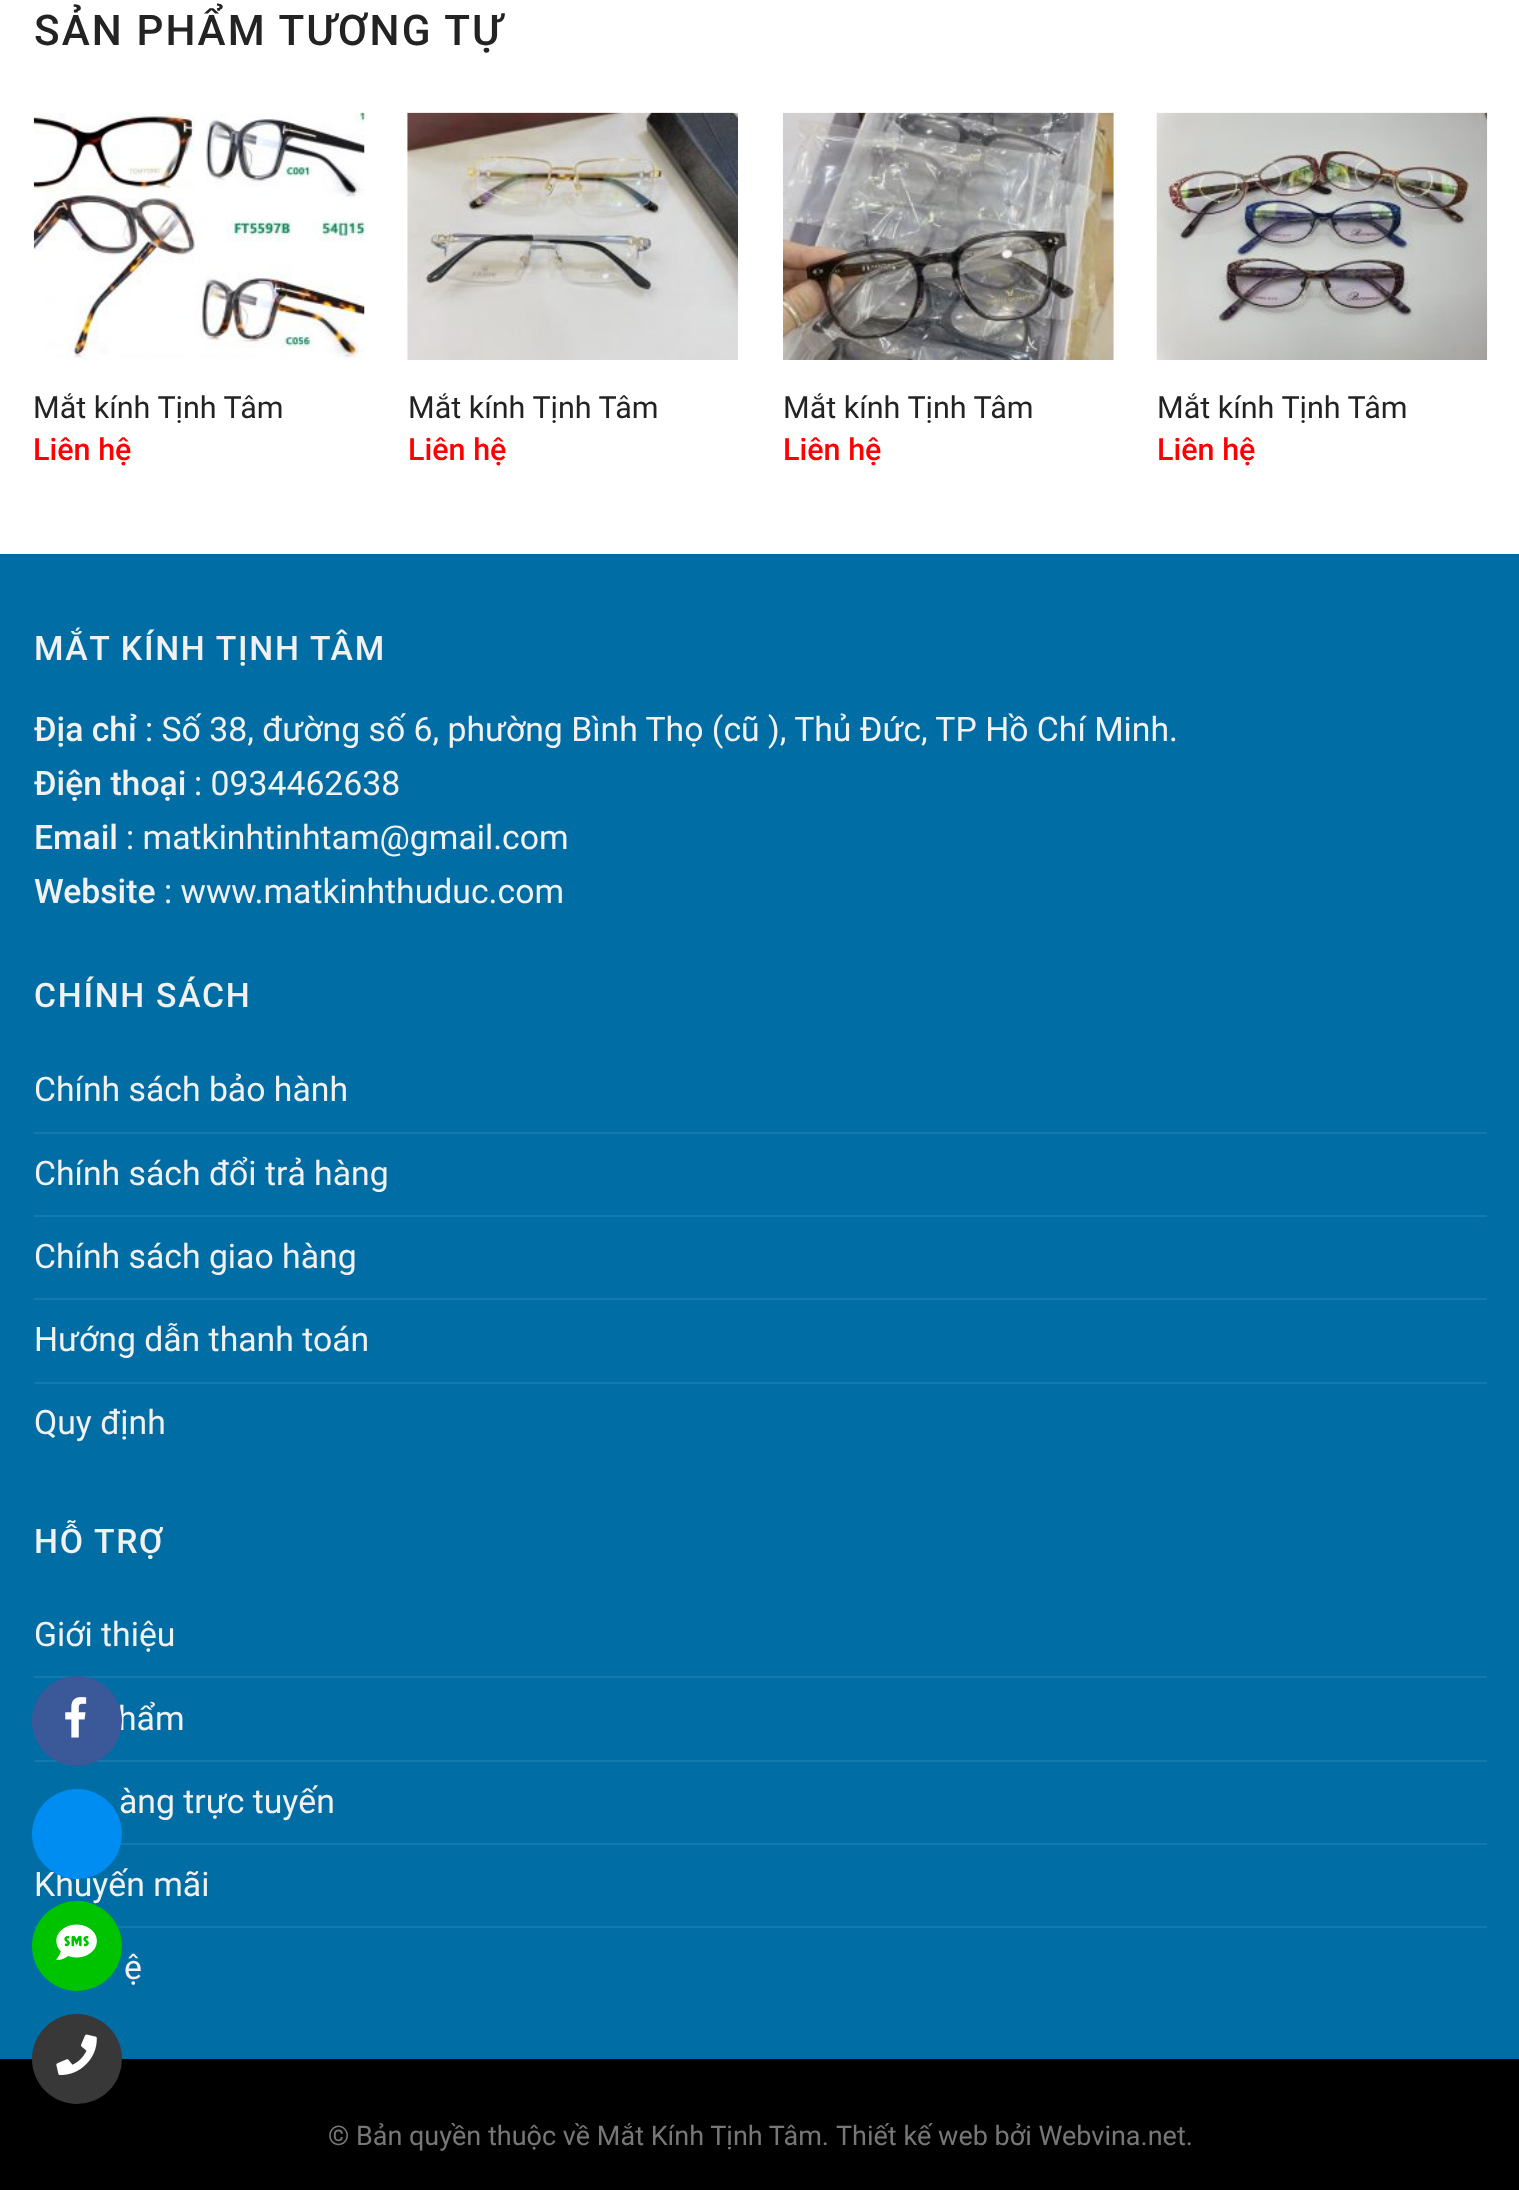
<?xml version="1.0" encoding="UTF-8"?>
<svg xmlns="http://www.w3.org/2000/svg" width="1519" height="2190">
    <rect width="100%" height="100%" fill="#FFFFFF"/>
    <text x="34" y="45" font-family="Roboto" font-size="42.25" font-weight="500" letter-spacing="2.1" fill="#232323">SẢN PHẨM TƯƠNG TỰ</text>
    <image x="33" y="112" width="332" height="248" href="img_01.png"/>
    <text x="33" y="418" font-family="Roboto" font-size="30.5" fill="#232323">Mắt kính Tịnh Tâm</text>
    <text x="33" y="460" font-family="Roboto" font-size="30.5" font-weight="500" fill="#FF0000">Liên hệ</text>
    <image x="407" y="112" width="331" height="248" href="img_02.png"/>
    <text x="408" y="418" font-family="Roboto" font-size="30.5" fill="#232323">Mắt kính Tịnh Tâm</text>
    <text x="408" y="460" font-family="Roboto" font-size="30.5" font-weight="500" fill="#FF0000">Liên hệ</text>
    <image x="783" y="112" width="331" height="248" href="img_03.png"/>
    <text x="783" y="418" font-family="Roboto" font-size="30.5" fill="#232323">Mắt kính Tịnh Tâm</text>
    <text x="783" y="460" font-family="Roboto" font-size="30.5" font-weight="500" fill="#FF0000">Liên hệ</text>
    <image x="1156" y="112" width="332" height="248" href="img_04.png"/>
    <text x="1157" y="418" font-family="Roboto" font-size="30.5" fill="#232323">Mắt kính Tịnh Tâm</text>
    <text x="1157" y="460" font-family="Roboto" font-size="30.5" font-weight="500" fill="#FF0000">Liên hệ</text>
    <rect x="0" y="556" width="1519" height="1503" fill="#006DA5"/>
    <rect x="0" y="554" width="1519" height="2" fill="#00689D"/>
    <text x="34" y="660" font-family="Roboto" font-size="33.75" font-weight="500" letter-spacing="1.7" fill="#F1F1F1">MẮT KÍNH TỊNH TÂM</text>
    <text x="34" y="741" font-family="Roboto" font-size="33.75" font-weight="500" fill="#F1F1F1">Địa chỉ</text>
    <text x="145" y="741" font-family="Roboto" font-size="33.75" fill="#F1F1F1">: Số 38, đường số 6, phường Bình Thọ (cũ ), Thủ Đức, TP Hồ Chí Minh.</text>
    <text x="34" y="795" font-family="Roboto" font-size="33.75" font-weight="500" fill="#F1F1F1">Điện thoại</text>
    <text x="194" y="795" font-family="Roboto" font-size="33.75" fill="#F1F1F1">: 0934462638</text>
    <text x="34" y="849" font-family="Roboto" font-size="33.75" font-weight="500" fill="#F1F1F1">Email</text>
    <text x="126" y="849" font-family="Roboto" font-size="33.75" fill="#F1F1F1">: matkinhtinhtam@gmail.com</text>
    <text x="34" y="903" font-family="Roboto" font-size="33.75" font-weight="500" fill="#F1F1F1">Website</text>
    <text x="164" y="903" font-family="Roboto" font-size="33.75" fill="#F1F1F1">: www.matkinhthuduc.com</text>
    <text x="34" y="1007" font-family="Roboto" font-size="33.75" font-weight="500" letter-spacing="1.7" fill="#F1F1F1">CHÍNH SÁCH</text>
    <text x="34" y="1101" font-family="Roboto" font-size="33.75" fill="#F1F1F1">Chính sách bảo hành</text>
    <rect x="34" y="1132" width="1453" height="2" fill="#1479AC"/>
    <text x="34" y="1185" font-family="Roboto" font-size="33.75" fill="#F1F1F1">Chính sách đổi trả hàng</text>
    <rect x="34" y="1215" width="1453" height="2" fill="#1479AC"/>
    <text x="34" y="1268" font-family="Roboto" font-size="33.75" fill="#F1F1F1">Chính sách giao hàng</text>
    <rect x="34" y="1298" width="1453" height="2" fill="#1479AC"/>
    <text x="34" y="1351" font-family="Roboto" font-size="33.75" fill="#F1F1F1">Hướng dẫn thanh toán</text>
    <rect x="34" y="1382" width="1453" height="2" fill="#1479AC"/>
    <text x="34" y="1434" font-family="Roboto" font-size="33.75" fill="#F1F1F1">Quy định</text>
    <text x="34" y="1553" font-family="Roboto" font-size="33.75" font-weight="500" letter-spacing="1.7" fill="#F1F1F1">HỖ TRỢ</text>
    <text x="34" y="1646" font-family="Roboto" font-size="33.75" fill="#F1F1F1">Giới thiệu</text>
    <rect x="34" y="1676" width="1453" height="2" fill="#1479AC"/>
    <text x="118" y="1730" font-family="Roboto" font-size="33.75" fill="#F1F1F1">hẩm</text>
    <rect x="34" y="1760" width="1453" height="2" fill="#1479AC"/>
    <text x="119" y="1813" font-family="Roboto" font-size="33.75" fill="#F1F1F1">àng trực tuyến</text>
    <rect x="120" y="1843" width="1367" height="2" fill="#1479AC"/>
    <text x="34" y="1896" font-family="Roboto" font-size="33.75" fill="#F1F1F1">Khuyến mãi</text>
    <rect x="34" y="1926" width="1453" height="2" fill="#1479AC"/>
    <text x="124" y="1979" font-family="Roboto" font-size="33.75" fill="#F1F1F1">ệ</text>
    <rect x="0" y="2059" width="1519" height="131" fill="#000000"/>
    <text x="328" y="2145" font-family="Roboto" font-size="27" fill="#777777">© Bản quyền thuộc về Mắt Kính Tịnh Tâm.</text>
    <text x="836" y="2145" font-family="Roboto" font-size="27" fill="#777777">Thiết kế web bởi Webvina.net.</text>
    <circle cx="77" cy="1721" r="45" fill="#3B5999"/>
    <image x="65" y="1697" width="22" height="41" href="img_05.png"/>
    <circle cx="77" cy="1834" r="45" fill="#008DF2"/>
    <circle cx="77" cy="1946" r="45" fill="#00C300"/>
    <image x="56" y="1924" width="41" height="36" href="img_06.png"/>
    <circle cx="77" cy="2059" r="45" fill="#383838"/>
    <image x="56" y="2034" width="41" height="42" href="img_07.png"/>
</svg>
